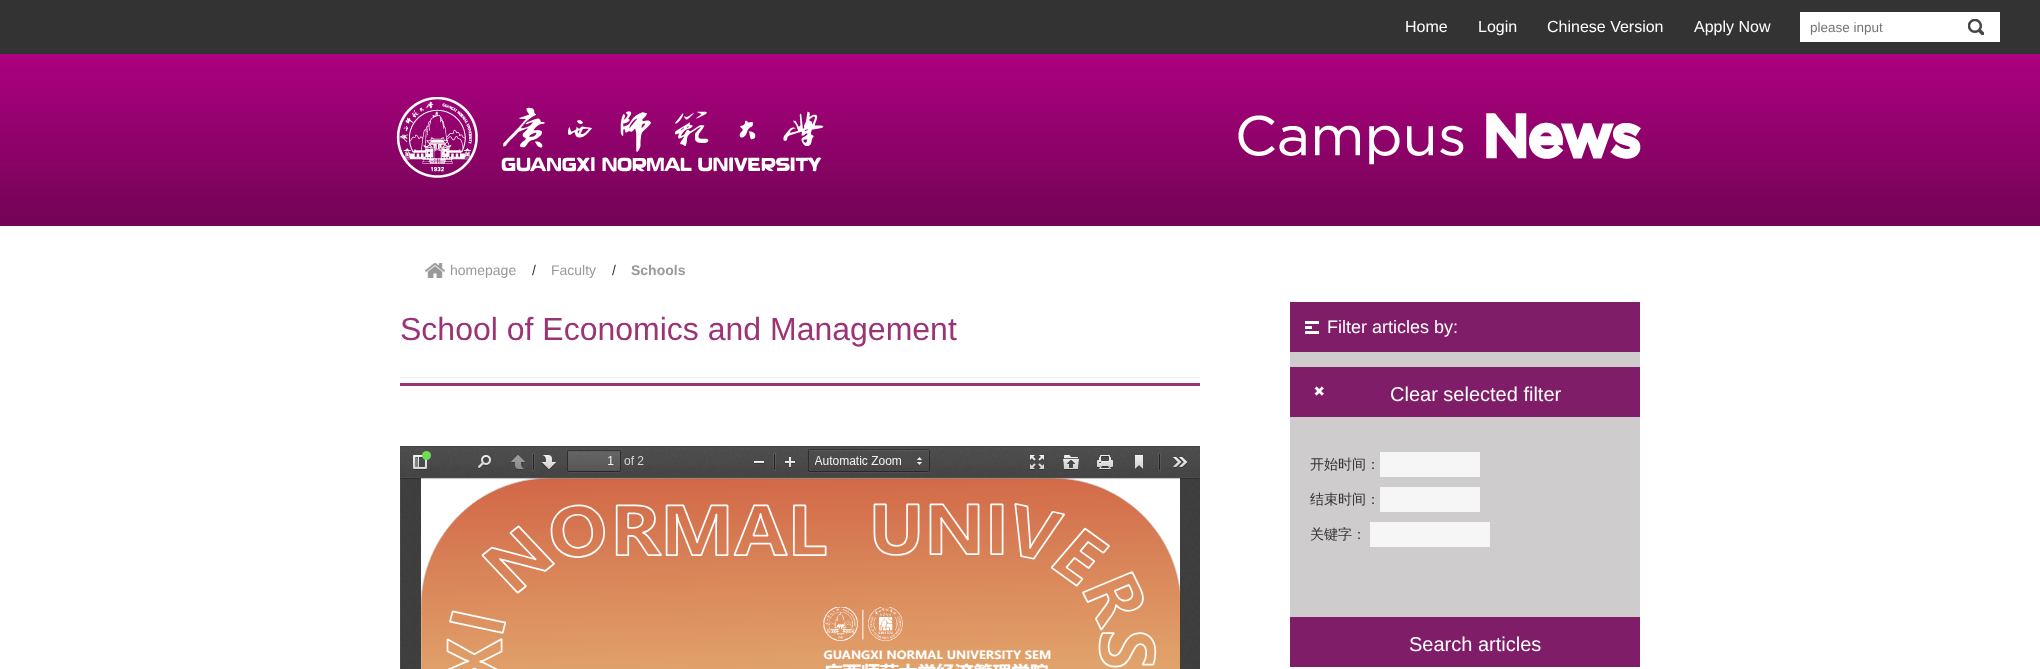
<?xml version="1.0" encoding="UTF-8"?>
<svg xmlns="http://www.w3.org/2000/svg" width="2040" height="669">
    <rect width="100%" height="100%" fill="#FFFFFF"/>
    <rect x="0" y="0" width="2040" height="54" fill="#333333"/>
    <text x="1405" y="32" font-family="Liberation Sans" font-size="16" fill="#FFFFFF">Home</text>
    <text x="1478" y="32" font-family="Liberation Sans" font-size="16" fill="#FFFFFF">Login</text>
    <text x="1547" y="32" font-family="Liberation Sans" font-size="16" fill="#FFFFFF">Chinese Version</text>
    <text x="1694" y="32" font-family="Liberation Sans" font-size="16" fill="#FFFFFF">Apply Now</text>
    <rect x="1800" y="12" width="200" height="30" fill="#FFFFFF"/>
    <text x="1810" y="32" font-family="Liberation Sans" font-size="13.5" fill="#757575">please input</text>
    <image x="1968" y="19" width="16" height="16" href="img_01.png"/>
    <image x="0" y="54" width="2040" height="172" href="img_02.png"/>
    <image x="396" y="97" width="1245" height="81" href="img_03.png"/>
    <image x="425" y="263" width="20" height="15" href="img_04.png"/>
    <text x="450" y="275" font-family="Liberation Sans" font-size="14" fill="#999999">homepage</text>
    <text x="532" y="275" font-family="Liberation Sans" font-size="14" fill="#333333">/</text>
    <text x="551" y="275" font-family="Liberation Sans" font-size="14" fill="#999999">Faculty</text>
    <text x="612" y="275" font-family="Liberation Sans" font-size="14" fill="#333333">/</text>
    <text x="631" y="275" font-family="Liberation Sans" font-size="14" font-weight="700" fill="#999999">Schools</text>
    <rect x="400" y="377" width="800" height="1" fill="#F0F0F0"/>
    <text x="400" y="340" font-family="Liberation Sans" font-size="32" fill="#9A3476">School of Economics and Management</text>
    <rect x="400" y="383" width="800" height="3" fill="#9A3476"/>
    <image x="400" y="446" width="800" height="223" href="img_05.png"/>
    <rect x="1290" y="352" width="350" height="265" fill="#CECCCD"/>
    <rect x="1290" y="302" width="350" height="50" fill="#7F1D68"/>
    <image x="1305" y="321" width="14" height="13" href="img_06.png"/>
    <text x="1327" y="333" font-family="Liberation Sans" font-size="18" fill="#FFFFFF">Filter articles by:</text>
    <rect x="1290" y="367" width="350" height="50" fill="#7F1D68"/>
    <image x="1314" y="386" width="10" height="10" href="img_07.png"/>
    <text x="1390" y="401" font-family="Liberation Sans" font-size="20" fill="#FFFFFF">Clear selected filter</text>
    <text x="1310" y="469" font-family="WenQuanYi Zen Hei" font-size="14" font-weight="500" fill="#333333">开始时间：</text>
    <rect x="1380" y="452" width="100" height="25" fill="#F6F6F6"/>
    <text x="1310" y="504" font-family="WenQuanYi Zen Hei" font-size="14" font-weight="500" fill="#333333">结束时间：</text>
    <rect x="1380" y="487" width="100" height="25" fill="#F6F6F6"/>
    <text x="1310" y="539" font-family="WenQuanYi Zen Hei" font-size="14" font-weight="500" fill="#333333">关键字：</text>
    <rect x="1370" y="522" width="120" height="25" fill="#F6F6F6"/>
    <rect x="1290" y="617" width="350" height="50" fill="#7F1D68"/>
    <text x="1409" y="651" font-family="Liberation Sans" font-size="20" fill="#FFFFFF">Search articles</text>
</svg>
